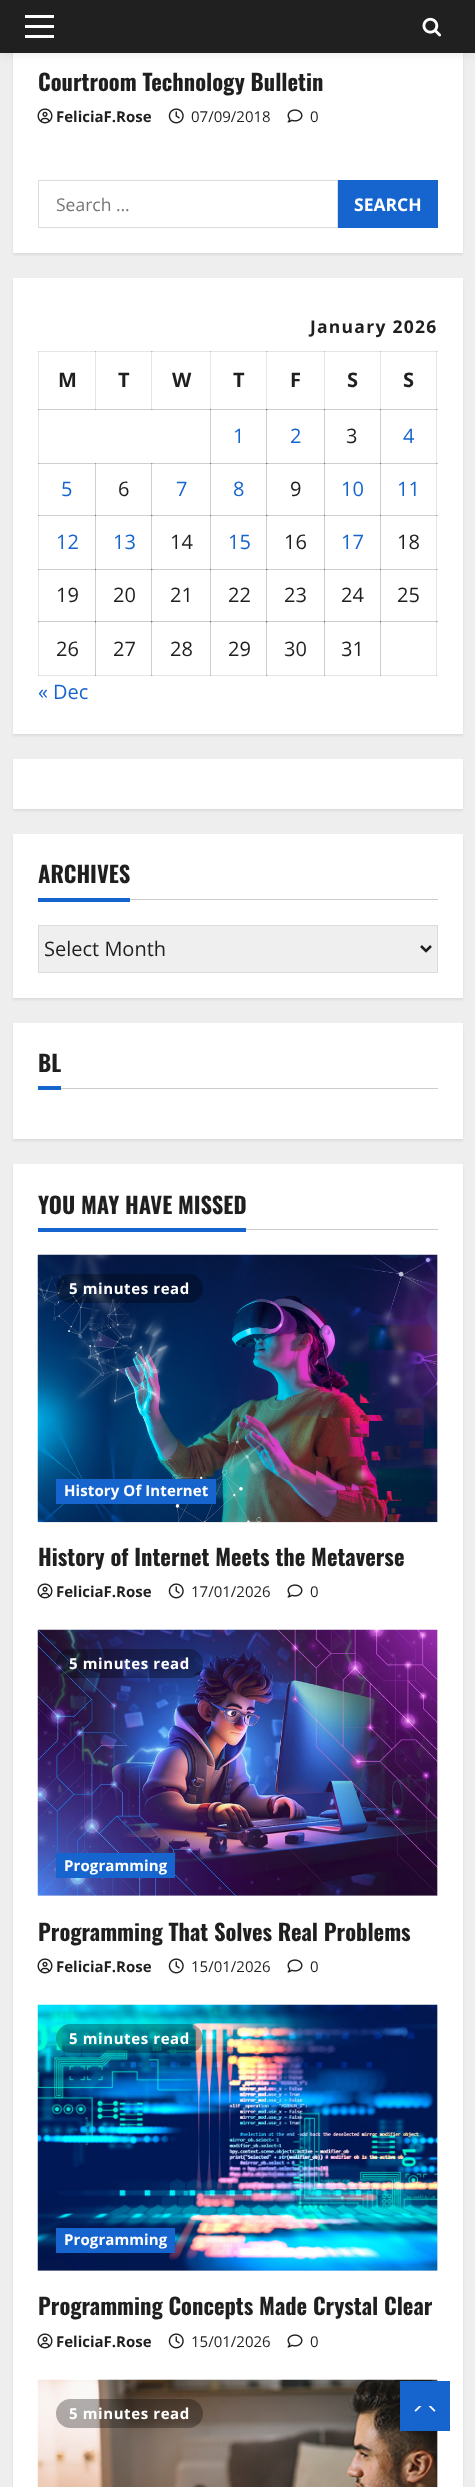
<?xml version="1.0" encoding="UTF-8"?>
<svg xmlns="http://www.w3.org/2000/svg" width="475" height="2487">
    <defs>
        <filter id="blur1" x="-50%" y="-200%" width="200%" height="500%"><feGaussianBlur stdDeviation="1"/></filter>
        <filter id="blur2" x="-50%" y="-200%" width="200%" height="500%"><feGaussianBlur stdDeviation="5"/></filter>
    </defs>
    <rect width="100%" height="100%" fill="#EEEEEE"/>
    <rect x="13" y="-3" width="450" height="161" fill="#000000" fill-opacity="0.08" filter="url(#blur1)"/>
    <rect x="13" y="53" width="450" height="102" fill="#FFFFFF"/>
    <rect x="0" y="3" width="475" height="52" fill="#000000" fill-opacity="0.08" filter="url(#blur2)"/>
    <rect x="0" y="0" width="475" height="53" fill="#202020"/>
    <rect x="25" y="25" width="29" height="3" fill="#FFFFFF"/>
    <rect x="25" y="15" width="29" height="3" fill="#FFFFFF"/>
    <rect x="25" y="35" width="29" height="3" fill="#FFFFFF"/>
    <image x="422" y="17" width="19" height="20" href="img_01.png"/>
    <text x="38" y="91" font-family="Oswald" font-size="22.5" font-weight="700" fill="#1F1F1F">Courtroom Technology Bulletin</text>
    <image x="37" y="108" width="16" height="16" href="img_02.png"/>
    <text x="56" y="122" font-family="Open Sans" font-size="15" font-weight="700" fill="#1F1F1F">FeliciaF.Rose</text>
    <image x="168" y="108" width="16" height="16" href="img_03.png"/>
    <text x="191" y="122" font-family="Open Sans" font-size="15" fill="#1F1F1F">07/09/2018</text>
    <image x="287" y="109" width="16" height="14" href="img_04.png"/>
    <text x="310" y="122" font-family="Open Sans" font-size="15" fill="#1F1F1F">0</text>
    <rect x="13" y="158" width="450" height="97" fill="#000000" fill-opacity="0.08" filter="url(#blur1)"/>
    <rect x="13" y="155" width="450" height="98" fill="#FFFFFF"/>
    <rect x="38.5" y="180.5" width="299" height="47" fill="none" stroke="#DCDCDC"/>
    <text x="56" y="211" font-family="Open Sans" font-size="17.5" fill="#757575">Search …</text>
    <rect x="338" y="180" width="100" height="48" fill="#1665CF"/>
    <text x="354" y="211" font-family="Open Sans" font-size="17.5" font-weight="700" fill="#FFFFFF">SEARCH</text>
    <rect x="13" y="280" width="450" height="456" fill="#000000" fill-opacity="0.08" filter="url(#blur1)"/>
    <rect x="13" y="278" width="450" height="456" fill="#FFFFFF"/>
    <rect x="38" y="351" width="1" height="325" fill="#E6E6E6"/>
    <rect x="38" y="351" width="58" height="1" fill="#E6E6E6"/>
    <rect x="38" y="351" width="1" height="1" fill="#CFCFCF"/>
    <rect x="95" y="351" width="1" height="59" fill="#E6E6E6"/>
    <rect x="95" y="351" width="58" height="1" fill="#E6E6E6"/>
    <rect x="95" y="351" width="1" height="1" fill="#BABABA"/>
    <rect x="151" y="351" width="1" height="59" fill="#E6E6E6"/>
    <rect x="151" y="351" width="60" height="1" fill="#E6E6E6"/>
    <rect x="151" y="351" width="2" height="1" fill="#CFCFCF"/>
    <rect x="151" y="351" width="1" height="1" fill="#BABABA"/>
    <rect x="210" y="351" width="1" height="59" fill="#E6E6E6"/>
    <rect x="210" y="351" width="58" height="1" fill="#E6E6E6"/>
    <rect x="210" y="351" width="1" height="1" fill="#BABABA"/>
    <rect x="266" y="351" width="1" height="59" fill="#E6E6E6"/>
    <rect x="266" y="351" width="59" height="1" fill="#E6E6E6"/>
    <rect x="266" y="351" width="2" height="1" fill="#CFCFCF"/>
    <rect x="266" y="351" width="1" height="1" fill="#BABABA"/>
    <rect x="324" y="351" width="1" height="59" fill="#E6E6E6"/>
    <rect x="324" y="351" width="57" height="1" fill="#E6E6E6"/>
    <rect x="324" y="351" width="1" height="1" fill="#BABABA"/>
    <rect x="380" y="351" width="1" height="59" fill="#E6E6E6"/>
    <rect x="436" y="351" width="1" height="272" fill="#E6E6E6"/>
    <rect x="38" y="409" width="173" height="1" fill="#CFCFCF"/>
    <rect x="95" y="409" width="1" height="1" fill="#A7A7A7"/>
    <rect x="151" y="409" width="2" height="1" fill="#BABABA"/>
    <rect x="151" y="409" width="1" height="1" fill="#A7A7A7"/>
    <rect x="38" y="409" width="1" height="1" fill="#A7A7A7"/>
    <rect x="210" y="409" width="1" height="55" fill="#CFCFCF"/>
    <rect x="210" y="409" width="58" height="1" fill="#CFCFCF"/>
    <rect x="210" y="409" width="1" height="1" fill="#7A7A7A"/>
    <rect x="266" y="409" width="1" height="55" fill="#CFCFCF"/>
    <rect x="266" y="409" width="59" height="1" fill="#CFCFCF"/>
    <rect x="266" y="409" width="2" height="1" fill="#A7A7A7"/>
    <rect x="266" y="409" width="1" height="1" fill="#7A7A7A"/>
    <rect x="324" y="409" width="1" height="55" fill="#CFCFCF"/>
    <rect x="324" y="409" width="57" height="1" fill="#CFCFCF"/>
    <rect x="324" y="409" width="1" height="1" fill="#7A7A7A"/>
    <rect x="380" y="409" width="1" height="55" fill="#CFCFCF"/>
    <rect x="38" y="463" width="58" height="1" fill="#CFCFCF"/>
    <rect x="38" y="463" width="1" height="1" fill="#A7A7A7"/>
    <rect x="95" y="463" width="1" height="53" fill="#CFCFCF"/>
    <rect x="95" y="463" width="58" height="1" fill="#CFCFCF"/>
    <rect x="95" y="463" width="1" height="1" fill="#969696"/>
    <rect x="151" y="463" width="1" height="53" fill="#CFCFCF"/>
    <rect x="151" y="463" width="60" height="1" fill="#CFCFCF"/>
    <rect x="151" y="463" width="2" height="1" fill="#BABABA"/>
    <rect x="151" y="463" width="1" height="1" fill="#969696"/>
    <rect x="210" y="463" width="1" height="53" fill="#CFCFCF"/>
    <rect x="210" y="463" width="58" height="1" fill="#CFCFCF"/>
    <rect x="210" y="463" width="1" height="1" fill="#6E6E6E"/>
    <rect x="266" y="463" width="1" height="53" fill="#CFCFCF"/>
    <rect x="266" y="463" width="59" height="1" fill="#CFCFCF"/>
    <rect x="266" y="463" width="2" height="1" fill="#A7A7A7"/>
    <rect x="266" y="463" width="1" height="1" fill="#6E6E6E"/>
    <rect x="324" y="463" width="1" height="53" fill="#CFCFCF"/>
    <rect x="324" y="463" width="57" height="1" fill="#CFCFCF"/>
    <rect x="324" y="463" width="1" height="1" fill="#6E6E6E"/>
    <rect x="380" y="463" width="1" height="53" fill="#CFCFCF"/>
    <rect x="38" y="515" width="58" height="1" fill="#CFCFCF"/>
    <rect x="38" y="515" width="1" height="1" fill="#A7A7A7"/>
    <rect x="95" y="515" width="1" height="55" fill="#CFCFCF"/>
    <rect x="95" y="515" width="58" height="1" fill="#CFCFCF"/>
    <rect x="95" y="515" width="1" height="1" fill="#6E6E6E"/>
    <rect x="151" y="515" width="1" height="55" fill="#CFCFCF"/>
    <rect x="151" y="515" width="60" height="1" fill="#CFCFCF"/>
    <rect x="151" y="515" width="2" height="1" fill="#A7A7A7"/>
    <rect x="151" y="515" width="1" height="1" fill="#6E6E6E"/>
    <rect x="210" y="515" width="1" height="55" fill="#CFCFCF"/>
    <rect x="210" y="515" width="58" height="1" fill="#CFCFCF"/>
    <rect x="210" y="515" width="1" height="1" fill="#6E6E6E"/>
    <rect x="266" y="515" width="1" height="55" fill="#CFCFCF"/>
    <rect x="266" y="515" width="59" height="1" fill="#CFCFCF"/>
    <rect x="266" y="515" width="2" height="1" fill="#A7A7A7"/>
    <rect x="266" y="515" width="1" height="1" fill="#6E6E6E"/>
    <rect x="324" y="515" width="1" height="55" fill="#CFCFCF"/>
    <rect x="324" y="515" width="57" height="1" fill="#CFCFCF"/>
    <rect x="324" y="515" width="1" height="1" fill="#6E6E6E"/>
    <rect x="380" y="515" width="1" height="55" fill="#CFCFCF"/>
    <rect x="38" y="569" width="58" height="1" fill="#CFCFCF"/>
    <rect x="38" y="569" width="1" height="1" fill="#A7A7A7"/>
    <rect x="95" y="569" width="1" height="54" fill="#CFCFCF"/>
    <rect x="95" y="569" width="58" height="1" fill="#CFCFCF"/>
    <rect x="95" y="569" width="1" height="1" fill="#6E6E6E"/>
    <rect x="151" y="569" width="1" height="54" fill="#CFCFCF"/>
    <rect x="151" y="569" width="60" height="1" fill="#CFCFCF"/>
    <rect x="151" y="569" width="2" height="1" fill="#A7A7A7"/>
    <rect x="151" y="569" width="1" height="1" fill="#6E6E6E"/>
    <rect x="210" y="569" width="1" height="54" fill="#CFCFCF"/>
    <rect x="210" y="569" width="58" height="1" fill="#CFCFCF"/>
    <rect x="210" y="569" width="1" height="1" fill="#6E6E6E"/>
    <rect x="266" y="569" width="1" height="54" fill="#CFCFCF"/>
    <rect x="266" y="569" width="59" height="1" fill="#CFCFCF"/>
    <rect x="266" y="569" width="2" height="1" fill="#A7A7A7"/>
    <rect x="266" y="569" width="1" height="1" fill="#6E6E6E"/>
    <rect x="324" y="569" width="1" height="54" fill="#CFCFCF"/>
    <rect x="324" y="569" width="57" height="1" fill="#CFCFCF"/>
    <rect x="324" y="569" width="1" height="1" fill="#6E6E6E"/>
    <rect x="380" y="569" width="1" height="54" fill="#CFCFCF"/>
    <rect x="38" y="621" width="1" height="2" fill="#CFCFCF"/>
    <rect x="38" y="675" width="58" height="1" fill="#E6E6E6"/>
    <rect x="38" y="675" width="1" height="1" fill="#CFCFCF"/>
    <rect x="38" y="621" width="58" height="1" fill="#CFCFCF"/>
    <rect x="38" y="621" width="1" height="1" fill="#A7A7A7"/>
    <rect x="95" y="621" width="1" height="55" fill="#CFCFCF"/>
    <rect x="95" y="621" width="1" height="2" fill="#A7A7A7"/>
    <rect x="95" y="675" width="58" height="1" fill="#E6E6E6"/>
    <rect x="95" y="675" width="1" height="1" fill="#A7A7A7"/>
    <rect x="95" y="621" width="58" height="1" fill="#CFCFCF"/>
    <rect x="95" y="621" width="1" height="1" fill="#6E6E6E"/>
    <rect x="151" y="621" width="1" height="55" fill="#CFCFCF"/>
    <rect x="151" y="621" width="1" height="2" fill="#A7A7A7"/>
    <rect x="151" y="675" width="60" height="1" fill="#E6E6E6"/>
    <rect x="151" y="675" width="2" height="1" fill="#CFCFCF"/>
    <rect x="151" y="675" width="1" height="1" fill="#A7A7A7"/>
    <rect x="151" y="621" width="60" height="1" fill="#CFCFCF"/>
    <rect x="151" y="621" width="2" height="1" fill="#A7A7A7"/>
    <rect x="151" y="621" width="1" height="1" fill="#6E6E6E"/>
    <rect x="210" y="621" width="1" height="55" fill="#CFCFCF"/>
    <rect x="210" y="621" width="1" height="2" fill="#A7A7A7"/>
    <rect x="210" y="675" width="58" height="1" fill="#E6E6E6"/>
    <rect x="210" y="675" width="1" height="1" fill="#A7A7A7"/>
    <rect x="210" y="621" width="58" height="1" fill="#CFCFCF"/>
    <rect x="210" y="621" width="1" height="1" fill="#6E6E6E"/>
    <rect x="266" y="621" width="1" height="55" fill="#CFCFCF"/>
    <rect x="266" y="621" width="1" height="2" fill="#A7A7A7"/>
    <rect x="266" y="675" width="59" height="1" fill="#E6E6E6"/>
    <rect x="266" y="675" width="2" height="1" fill="#CFCFCF"/>
    <rect x="266" y="675" width="1" height="1" fill="#A7A7A7"/>
    <rect x="266" y="621" width="59" height="1" fill="#CFCFCF"/>
    <rect x="266" y="621" width="2" height="1" fill="#A7A7A7"/>
    <rect x="266" y="621" width="1" height="1" fill="#6E6E6E"/>
    <rect x="324" y="621" width="1" height="55" fill="#CFCFCF"/>
    <rect x="324" y="621" width="1" height="2" fill="#A7A7A7"/>
    <rect x="324" y="675" width="57" height="1" fill="#E6E6E6"/>
    <rect x="324" y="675" width="1" height="1" fill="#A7A7A7"/>
    <rect x="324" y="621" width="57" height="1" fill="#CFCFCF"/>
    <rect x="324" y="621" width="1" height="1" fill="#6E6E6E"/>
    <rect x="380" y="621" width="1" height="55" fill="#CFCFCF"/>
    <rect x="380" y="621" width="1" height="2" fill="#A7A7A7"/>
    <rect x="380" y="675" width="58" height="1" fill="#E6E6E6"/>
    <rect x="380" y="675" width="1" height="1" fill="#A7A7A7"/>
    <rect x="436" y="621" width="1" height="55" fill="#E6E6E6"/>
    <rect x="436" y="621" width="1" height="2" fill="#CFCFCF"/>
    <rect x="436" y="675" width="1" height="1" fill="#CFCFCF"/>
    <text x="310" y="333" font-family="Open Sans" font-size="17.5" font-weight="700" letter-spacing="1.25" fill="#1F1F1F">January 2026</text>
    <text x="58" y="387" font-family="Open Sans" font-size="20" font-weight="700" fill="#1F1F1F">M</text>
    <text x="118" y="387" font-family="Open Sans" font-size="20" font-weight="700" fill="#1F1F1F">T</text>
    <text x="172" y="387" font-family="Open Sans" font-size="20" font-weight="700" fill="#1F1F1F">W</text>
    <text x="233" y="387" font-family="Open Sans" font-size="20" font-weight="700" fill="#1F1F1F">T</text>
    <text x="290" y="387" font-family="Open Sans" font-size="20" font-weight="700" fill="#1F1F1F">F</text>
    <text x="347" y="387" font-family="Open Sans" font-size="20" font-weight="700" fill="#1F1F1F">S</text>
    <rect x="380" y="351" width="58" height="1" fill="#E6E6E6"/>
    <rect x="380" y="351" width="1" height="1" fill="#BABABA"/>
    <rect x="436" y="351" width="1" height="1" fill="#CFCFCF"/>
    <text x="403" y="387" font-family="Open Sans" font-size="20" font-weight="700" fill="#1F1F1F">S</text>
    <text x="233" y="443" font-family="Open Sans" font-size="20" fill="#1665CF">1</text>
    <text x="290" y="443" font-family="Open Sans" font-size="20" fill="#1665CF">2</text>
    <text x="346" y="443" font-family="Open Sans" font-size="20" fill="#1F1F1F">3</text>
    <rect x="380" y="409" width="58" height="1" fill="#CFCFCF"/>
    <rect x="380" y="409" width="1" height="1" fill="#7A7A7A"/>
    <rect x="436" y="409" width="1" height="1" fill="#A7A7A7"/>
    <text x="403" y="443" font-family="Open Sans" font-size="20" fill="#1665CF">4</text>
    <text x="61" y="496" font-family="Open Sans" font-size="20" fill="#1665CF">5</text>
    <text x="118" y="496" font-family="Open Sans" font-size="20" fill="#1F1F1F">6</text>
    <text x="176" y="496" font-family="Open Sans" font-size="20" fill="#1665CF">7</text>
    <text x="233" y="496" font-family="Open Sans" font-size="20" fill="#1665CF">8</text>
    <text x="290" y="496" font-family="Open Sans" font-size="20" fill="#1F1F1F">9</text>
    <text x="341" y="496" font-family="Open Sans" font-size="20" fill="#1665CF">10</text>
    <rect x="380" y="463" width="58" height="1" fill="#CFCFCF"/>
    <rect x="380" y="463" width="1" height="1" fill="#6E6E6E"/>
    <rect x="436" y="463" width="1" height="1" fill="#A7A7A7"/>
    <text x="397" y="496" font-family="Open Sans" font-size="20" fill="#1665CF">11</text>
    <text x="56" y="549" font-family="Open Sans" font-size="20" fill="#1665CF">12</text>
    <text x="113" y="549" font-family="Open Sans" font-size="20" fill="#1665CF">13</text>
    <text x="170" y="549" font-family="Open Sans" font-size="20" fill="#1F1F1F">14</text>
    <text x="228" y="549" font-family="Open Sans" font-size="20" fill="#1665CF">15</text>
    <text x="284" y="549" font-family="Open Sans" font-size="20" fill="#1F1F1F">16</text>
    <text x="341" y="549" font-family="Open Sans" font-size="20" fill="#1665CF">17</text>
    <rect x="380" y="515" width="58" height="1" fill="#CFCFCF"/>
    <rect x="380" y="515" width="1" height="1" fill="#6E6E6E"/>
    <rect x="436" y="515" width="1" height="1" fill="#A7A7A7"/>
    <text x="397" y="549" font-family="Open Sans" font-size="20" fill="#1F1F1F">18</text>
    <text x="56" y="602" font-family="Open Sans" font-size="20" fill="#1F1F1F">19</text>
    <text x="113" y="602" font-family="Open Sans" font-size="20" fill="#1F1F1F">20</text>
    <text x="170" y="602" font-family="Open Sans" font-size="20" fill="#1F1F1F">21</text>
    <text x="228" y="602" font-family="Open Sans" font-size="20" fill="#1F1F1F">22</text>
    <text x="284" y="602" font-family="Open Sans" font-size="20" fill="#1F1F1F">23</text>
    <text x="341" y="602" font-family="Open Sans" font-size="20" fill="#1F1F1F">24</text>
    <rect x="380" y="569" width="58" height="1" fill="#CFCFCF"/>
    <rect x="380" y="569" width="1" height="1" fill="#6E6E6E"/>
    <rect x="436" y="569" width="1" height="1" fill="#A7A7A7"/>
    <text x="397" y="602" font-family="Open Sans" font-size="20" fill="#1F1F1F">25</text>
    <rect x="380" y="621" width="58" height="1" fill="#CFCFCF"/>
    <rect x="380" y="621" width="1" height="1" fill="#6E6E6E"/>
    <rect x="436" y="621" width="1" height="1" fill="#A7A7A7"/>
    <text x="56" y="656" font-family="Open Sans" font-size="20" fill="#1F1F1F">26</text>
    <text x="113" y="656" font-family="Open Sans" font-size="20" fill="#1F1F1F">27</text>
    <text x="170" y="656" font-family="Open Sans" font-size="20" fill="#1F1F1F">28</text>
    <text x="228" y="656" font-family="Open Sans" font-size="20" fill="#1F1F1F">29</text>
    <text x="284" y="656" font-family="Open Sans" font-size="20" fill="#1F1F1F">30</text>
    <text x="341" y="656" font-family="Open Sans" font-size="20" fill="#1F1F1F">31</text>
    <text x="38" y="699" font-family="Open Sans" font-size="20" fill="#1665CF">« Dec</text>
    <rect x="13" y="761" width="450" height="50" fill="#000000" fill-opacity="0.08" filter="url(#blur1)"/>
    <rect x="13" y="759" width="450" height="50" fill="#FFFFFF"/>
    <rect x="13" y="836" width="450" height="164" fill="#000000" fill-opacity="0.08" filter="url(#blur1)"/>
    <rect x="13" y="834" width="450" height="164" fill="#FFFFFF"/>
    <rect x="130" y="899" width="308" height="1" fill="#CCCCCC"/>
    <text x="38" y="883" font-family="Oswald" font-size="22.5" font-weight="700" fill="#1F1F1F">ARCHIVES</text>
    <rect x="38" y="898" width="92" height="4" fill="#1665CF"/>
    <rect x="38.5" y="925.5" width="399" height="47" fill="#EFEFEF" stroke="#DCDCDC"/>
    <path d="M 421 946 L 426 951 L 431 946" fill="none" stroke="#1F1F1F" stroke-width="2.5"/>
    <text x="44" y="956" font-family="Open Sans" font-size="20" fill="#1F1F1F">Select Month</text>
    <rect x="13" y="1025" width="450" height="116" fill="#000000" fill-opacity="0.08" filter="url(#blur1)"/>
    <rect x="13" y="1023" width="450" height="116" fill="#FFFFFF"/>
    <rect x="61" y="1088" width="377" height="1" fill="#CCCCCC"/>
    <text x="38" y="1072" font-family="Oswald" font-size="22.5" font-weight="700" fill="#1F1F1F">BL</text>
    <rect x="38" y="1086" width="23" height="4" fill="#1665CF"/>
    <rect x="13" y="1166" width="450" height="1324" fill="#000000" fill-opacity="0.08" filter="url(#blur1)"/>
    <rect x="13" y="1164" width="450" height="1323" fill="#FFFFFF"/>
    <rect x="246" y="1229" width="192" height="1" fill="#CCCCCC"/>
    <text x="38" y="1214" font-family="Oswald" font-size="22.5" font-weight="700" fill="#1F1F1F">YOU MAY HAVE MISSED</text>
    <rect x="38" y="1228" width="208" height="4" fill="#1665CF"/>
    <rect x="38" y="1255" width="400" height="268" fill="#ECECEC"/>
    <image x="37" y="1254" width="401" height="268" href="img_05.png"/>
    <rect x="56" y="1274" width="147" height="29" rx="14.5" fill="#000000" fill-opacity="0.3"/>
    <text x="69" y="1294" font-family="Open Sans" font-size="15" font-weight="700" letter-spacing="0.6" fill="#FFFFFF">5 minutes read</text>
    <rect x="56" y="1479" width="160" height="25" fill="#1665CF"/>
    <text x="64" y="1496" font-family="Open Sans" font-size="15" font-weight="700" letter-spacing="0.1" fill="#FFFFFF">History Of Internet</text>
    <text x="38" y="1566" font-family="Oswald" font-size="22.5" font-weight="700" fill="#1F1F1F">History of Internet Meets the Metaverse</text>
    <image x="37" y="1583" width="16" height="16" href="img_02.png"/>
    <text x="56" y="1597" font-family="Open Sans" font-size="15" font-weight="700" fill="#1F1F1F">FeliciaF.Rose</text>
    <image x="168" y="1583" width="16" height="16" href="img_03.png"/>
    <text x="191" y="1597" font-family="Open Sans" font-size="15" fill="#1F1F1F">17/01/2026</text>
    <image x="287" y="1584" width="16" height="14" href="img_04.png"/>
    <text x="310" y="1597" font-family="Open Sans" font-size="15" fill="#1F1F1F">0</text>
    <rect x="38" y="1630" width="400" height="266" fill="#ECECEC"/>
    <image x="37" y="1629" width="401" height="267" href="img_06.png"/>
    <rect x="56" y="1649" width="147" height="29" rx="14.5" fill="#000000" fill-opacity="0.3"/>
    <text x="69" y="1669" font-family="Open Sans" font-size="15" font-weight="700" letter-spacing="0.6" fill="#FFFFFF">5 minutes read</text>
    <rect x="56" y="1853" width="119" height="25" fill="#1665CF"/>
    <text x="64" y="1871" font-family="Open Sans" font-size="15" font-weight="700" letter-spacing="0.1" fill="#FFFFFF">Programming</text>
    <text x="38" y="1941" font-family="Oswald" font-size="22.5" font-weight="700" fill="#1F1F1F">Programming That Solves Real Problems</text>
    <image x="37" y="1958" width="16" height="16" href="img_02.png"/>
    <text x="56" y="1972" font-family="Open Sans" font-size="15" font-weight="700" fill="#1F1F1F">FeliciaF.Rose</text>
    <image x="168" y="1958" width="16" height="16" href="img_03.png"/>
    <text x="191" y="1972" font-family="Open Sans" font-size="15" fill="#1F1F1F">15/01/2026</text>
    <image x="287" y="1959" width="16" height="14" href="img_04.png"/>
    <text x="310" y="1972" font-family="Open Sans" font-size="15" fill="#1F1F1F">0</text>
    <rect x="38" y="2005" width="400" height="266" fill="#ECECEC"/>
    <image x="37" y="2004" width="401" height="267" href="img_07.png"/>
    <rect x="56" y="2024" width="147" height="29" rx="14.5" fill="#000000" fill-opacity="0.3"/>
    <text x="69" y="2044" font-family="Open Sans" font-size="15" font-weight="700" letter-spacing="0.6" fill="#FFFFFF">5 minutes read</text>
    <rect x="56" y="2228" width="119" height="25" fill="#1665CF"/>
    <text x="64" y="2245" font-family="Open Sans" font-size="15" font-weight="700" letter-spacing="0.1" fill="#FFFFFF">Programming</text>
    <text x="38" y="2315" font-family="Oswald" font-size="22.5" font-weight="700" fill="#1F1F1F">Programming Concepts Made Crystal Clear</text>
    <image x="37" y="2333" width="16" height="16" href="img_02.png"/>
    <text x="56" y="2347" font-family="Open Sans" font-size="15" font-weight="700" fill="#1F1F1F">FeliciaF.Rose</text>
    <image x="168" y="2333" width="16" height="16" href="img_03.png"/>
    <text x="191" y="2347" font-family="Open Sans" font-size="15" fill="#1F1F1F">15/01/2026</text>
    <image x="287" y="2334" width="16" height="14" href="img_04.png"/>
    <text x="310" y="2347" font-family="Open Sans" font-size="15" fill="#1F1F1F">0</text>
    <rect x="437" y="2380" width="1" height="107" fill="#ECECEC"/>
    <image x="37" y="2379" width="401" height="108" href="img_08.png"/>
    <rect x="56" y="2399" width="147" height="29" rx="14.5" fill="#000000" fill-opacity="0.3"/>
    <text x="69" y="2419" font-family="Open Sans" font-size="15" font-weight="700" letter-spacing="0.6" fill="#FFFFFF">5 minutes read</text>
    <rect x="400" y="2381" width="50" height="50" fill="#1665CF"/>
    <path d="M 419 2412.5 H 431 C 433 2412.5 434.5 2412 435.5 2410.5 L 431 2406 H 419 L 414.5 2410.5 C 415.5 2412 417 2412.5 419 2412.5 Z" fill="#FFFFFF"/>
    <path d="M 437.5 2415 H 412.5 L 425 2402.5 Z" fill="#1665CF"/>
</svg>
